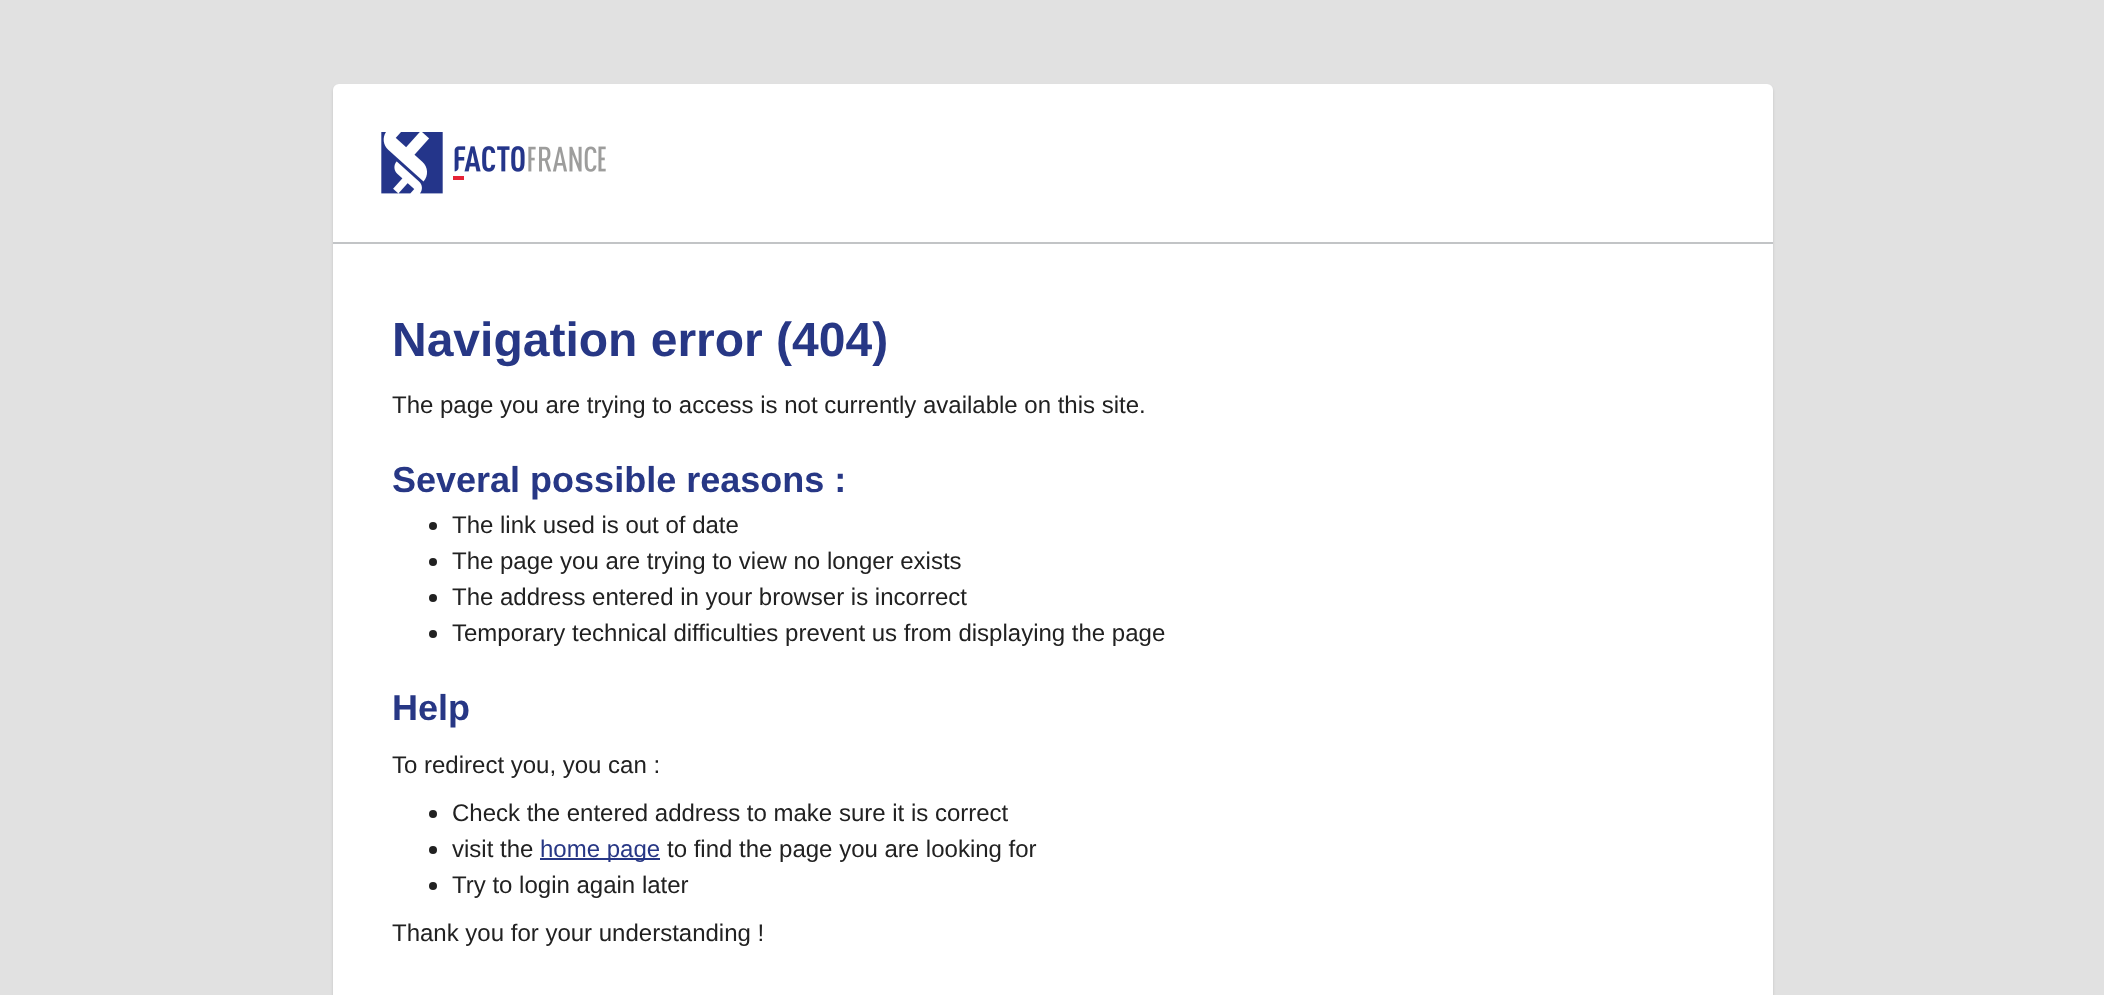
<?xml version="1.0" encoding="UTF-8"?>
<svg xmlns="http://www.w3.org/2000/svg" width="2104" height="995">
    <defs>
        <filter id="blur1" x="-50%" y="-200%" width="200%" height="500%"><feGaussianBlur stdDeviation="1.5"/></filter>
    </defs>
    <rect width="100%" height="100%" fill="#E1E1E1"/>
    <rect x="333" y="86" width="1440" height="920" rx="6" fill="#000000" fill-opacity="0.12" filter="url(#blur1)"/>
    <rect x="333" y="84" width="1440" height="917" rx="6" fill="#FFFFFF"/>
    <rect x="333" y="242" width="1440" height="2" fill="#C2C4C6"/>
    <image x="381" y="132" width="225" height="62" href="img_01.png"/>
    <text x="392" y="356" font-family="Liberation Sans" font-size="48" font-weight="700" fill="#273785">Navigation error (404)</text>
    <text x="392" y="413" font-family="Liberation Sans" font-size="24" fill="#212121">The page you are trying to access is not currently available on this site.</text>
    <text x="392" y="492" font-family="Liberation Sans" font-size="36" font-weight="700" fill="#273785">Several possible reasons :</text>
    <circle cx="433" cy="526" r="4" fill="#212121"/>
    <text x="452" y="533" font-family="Liberation Sans" font-size="24" fill="#212121">The link used is out of date</text>
    <circle cx="433" cy="562" r="4" fill="#212121"/>
    <text x="452" y="569" font-family="Liberation Sans" font-size="24" fill="#212121">The page you are trying to view no longer exists</text>
    <circle cx="433" cy="598" r="4" fill="#212121"/>
    <text x="452" y="605" font-family="Liberation Sans" font-size="24" fill="#212121">The address entered in your browser is incorrect</text>
    <circle cx="433" cy="634" r="4" fill="#212121"/>
    <text x="452" y="641" font-family="Liberation Sans" font-size="24" fill="#212121">Temporary technical difficulties prevent us from displaying the page</text>
    <text x="392" y="720" font-family="Liberation Sans" font-size="36" font-weight="700" fill="#273785">Help</text>
    <text x="392" y="773" font-family="Liberation Sans" font-size="24" fill="#212121">To redirect you, you can :</text>
    <circle cx="433" cy="814" r="4" fill="#212121"/>
    <text x="452" y="821" font-family="Liberation Sans" font-size="24" fill="#212121">Check the entered address to make sure it is correct</text>
    <circle cx="433" cy="850" r="4" fill="#212121"/>
    <text x="452" y="857" font-family="Liberation Sans" font-size="24" fill="#212121">visit the</text>
    <rect x="540" y="858" width="120" height="2" fill="#273785"/>
    <text x="540" y="857" font-family="Liberation Sans" font-size="24" fill="#273785">home page</text>
    <text x="667" y="857" font-family="Liberation Sans" font-size="24" fill="#212121">to find the page you are looking for</text>
    <circle cx="433" cy="886" r="4" fill="#212121"/>
    <text x="452" y="893" font-family="Liberation Sans" font-size="24" fill="#212121">Try to login again later</text>
    <text x="392" y="941" font-family="Liberation Sans" font-size="24" fill="#212121">Thank you for your understanding !</text>
</svg>
